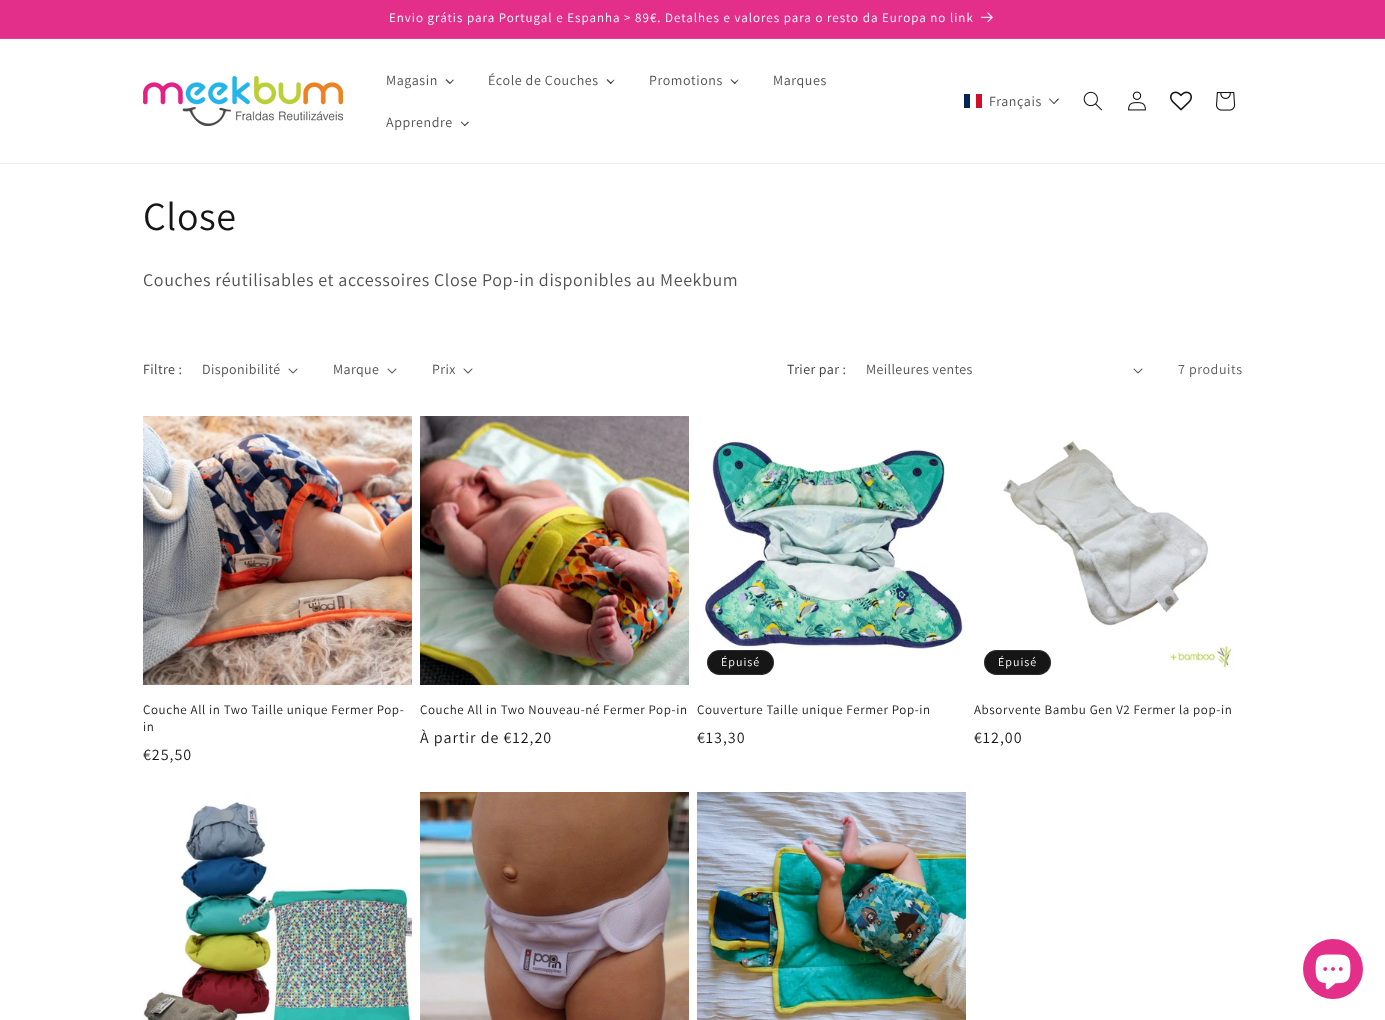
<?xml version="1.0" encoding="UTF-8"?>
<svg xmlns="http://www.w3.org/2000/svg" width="1385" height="1020">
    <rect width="100%" height="100%" fill="#FFFFFF"/>
    <rect x="0" y="0" width="1385" height="38" fill="#E32F89"/>
    <rect x="0" y="38" width="1385" height="1" fill="#E54092"/>
    <text x="389" y="22" font-family="Assistant" font-size="13" letter-spacing="1" fill="#FFFFFF">Envio grátis para Portugal e Espanha &gt; 89€. Detalhes e valores para o resto da Europa no link</text>
    <image x="981" y="12" width="12" height="11" href="img_01.png"/>
    <rect x="0" y="163" width="1385" height="1" fill="#ECECEC"/>
    <image x="143" y="76" width="200" height="50" href="img_02.png"/>
    <text x="386" y="85" font-family="Assistant" font-size="14" letter-spacing="0.6" fill="#505051">Magasin</text>
    <path d="M 453 79.5 L 454 80 L 450 84 L 449.5 83 Z" fill="#505051"/>
    <path d="M 446.5 79 L 450.5 83 L 449.5 84 L 445.5 80 Z" fill="#161617" fill-opacity="0.75"/>
    <text x="488" y="85" font-family="Assistant" font-size="14" letter-spacing="0.6" fill="#505051">École de Couches</text>
    <path d="M 614 79.5 L 614.5 80 L 611 84 L 610 83 Z" fill="#505051"/>
    <path d="M 607.5 79 L 611.5 83 L 610.5 84 L 606.5 80 Z" fill="#161617" fill-opacity="0.75"/>
    <text x="649" y="85" font-family="Assistant" font-size="14" letter-spacing="0.6" fill="#505051">Promotions</text>
    <path d="M 738 79.5 L 738.5 80 L 735 84 L 734 83 Z" fill="#505051"/>
    <path d="M 731 79 L 735.5 83 L 734.5 84 L 730.5 80 Z" fill="#161617" fill-opacity="0.75"/>
    <text x="773" y="85" font-family="Assistant" font-size="14" letter-spacing="0.6" fill="#505051">Marques</text>
    <text x="386" y="127" font-family="Assistant" font-size="14" letter-spacing="0.6" fill="#505051">Apprendre</text>
    <path d="M 468 121.5 L 469 122.5 L 465 126 L 464 125.5 Z" fill="#505051"/>
    <path d="M 461.5 121.5 L 465.5 125.5 L 464.5 126 L 460.5 122 Z" fill="#161617" fill-opacity="0.75"/>
    <rect x="964" y="94" width="6" height="14" fill="#002654"/>
    <rect x="976" y="94" width="6" height="14" fill="#CE1126"/>
    <text x="989" y="106" font-family="Assistant" font-size="14" letter-spacing="0.6" fill="#505051">Français</text>
    <path d="M 1058 98.5 L 1059 99 L 1054 104 L 1053.5 103.5 Z" fill="#1A1A1A"/>
    <path d="M 1049.5 98.5 L 1054.5 103.5 L 1054 104 L 1049 99 Z" fill="#1A1A1A"/>
    <image x="1083" y="91" width="19" height="20" href="img_03.png"/>
    <image x="1128" y="91" width="18" height="20" href="img_04.png"/>
    <image x="1170" y="91" width="22" height="20" href="img_05.png"/>
    <image x="1216" y="92" width="20" height="19" href="img_06.png"/>
    <text x="143" y="230" font-family="Assistant" font-size="40" letter-spacing="0.6" fill="#161617">Close</text>
    <text x="143" y="286" font-family="Assistant" font-size="18" letter-spacing="0.6" fill="#505051">Couches réutilisables et accessoires Close Pop-in disponibles au Meekbum</text>
    <text x="143" y="374" font-family="Assistant" font-size="14" letter-spacing="0.4" fill="#39393A">Filtre :</text>
    <text x="202" y="374" font-family="Assistant" font-size="14" letter-spacing="0.4" fill="#505051">Disponibilité</text>
    <image x="288" y="368" width="10" height="6" href="img_07.png"/>
    <text x="333" y="374" font-family="Assistant" font-size="14" letter-spacing="0.4" fill="#505051">Marque</text>
    <image x="387" y="368" width="10" height="6" href="img_07.png"/>
    <text x="432" y="374" font-family="Assistant" font-size="14" letter-spacing="0.4" fill="#505051">Prix</text>
    <image x="463" y="368" width="10" height="6" href="img_07.png"/>
    <text x="787" y="374" font-family="Assistant" font-size="14" letter-spacing="0.4" fill="#39393A">Trier par :</text>
    <text x="866" y="374" font-family="Assistant" font-size="14" letter-spacing="0.4" fill="#505051">Meilleures ventes</text>
    <image x="1133" y="368" width="10" height="6" href="img_07.png"/>
    <text x="1178" y="374" font-family="Assistant" font-size="14" letter-spacing="0.6" fill="#5C5C5D">7 produits</text>
    <image x="143" y="416" width="269" height="269" href="img_08.png"/>
    <text font-family="Assistant" font-size="13" letter-spacing="0.6" fill="#161617">
        <tspan x="143" y="714">Couche All in Two Taille unique Fermer Pop-</tspan>
        <tspan x="143" y="731">in</tspan>
    </text>
    <text x="143" y="760" font-family="Assistant" font-size="16" letter-spacing="1" fill="#161617">€25,50</text>
    <image x="420" y="416" width="269" height="269" href="img_09.png"/>
    <text x="420" y="714" font-family="Assistant" font-size="13" letter-spacing="0.6" fill="#161617">Couche All in Two Nouveau-né Fermer Pop-in</text>
    <text x="420" y="743" font-family="Assistant" font-size="16" letter-spacing="1" fill="#161617">À partir de €12,20</text>
    <image x="697" y="416" width="269" height="269" href="img_10.png"/>
    <rect x="707" y="650" width="67" height="25" rx="12.5" fill="#161617"/>
    <rect x="707.5" y="650.5" width="66" height="24" rx="12" fill="none" stroke="#FFFFFF" stroke-opacity="0.1"/>
    <text x="721" y="666" font-family="Assistant" font-size="12" letter-spacing="1" fill="#FFFFFF">Épuisé</text>
    <text x="697" y="714" font-family="Assistant" font-size="13" letter-spacing="0.6" fill="#161617">Couverture Taille unique Fermer Pop-in</text>
    <text x="697" y="743" font-family="Assistant" font-size="16" letter-spacing="1" fill="#161617">€13,30</text>
    <image x="974" y="416" width="269" height="269" href="img_11.png"/>
    <rect x="984" y="650" width="67" height="25" rx="12.5" fill="#161617"/>
    <rect x="984.5" y="650.5" width="66" height="24" rx="12" fill="none" stroke="#FFFFFF" stroke-opacity="0.1"/>
    <text x="998" y="666" font-family="Assistant" font-size="12" letter-spacing="1" fill="#FFFFFF">Épuisé</text>
    <text x="974" y="714" font-family="Assistant" font-size="13" letter-spacing="0.6" fill="#161617">Absorvente Bambu Gen V2 Fermer la pop-in</text>
    <text x="974" y="743" font-family="Assistant" font-size="16" letter-spacing="1" fill="#161617">€12,00</text>
    <image x="143" y="792" width="269" height="228" href="img_12.png"/>
    <image x="420" y="792" width="269" height="228" href="img_13.png"/>
    <image x="697" y="792" width="269" height="228" href="img_14.png"/>
    <circle cx="1333" cy="969" r="30" fill="#E32F89"/>
    <image x="1315" y="954" width="36" height="36" href="img_15.png"/>
</svg>
